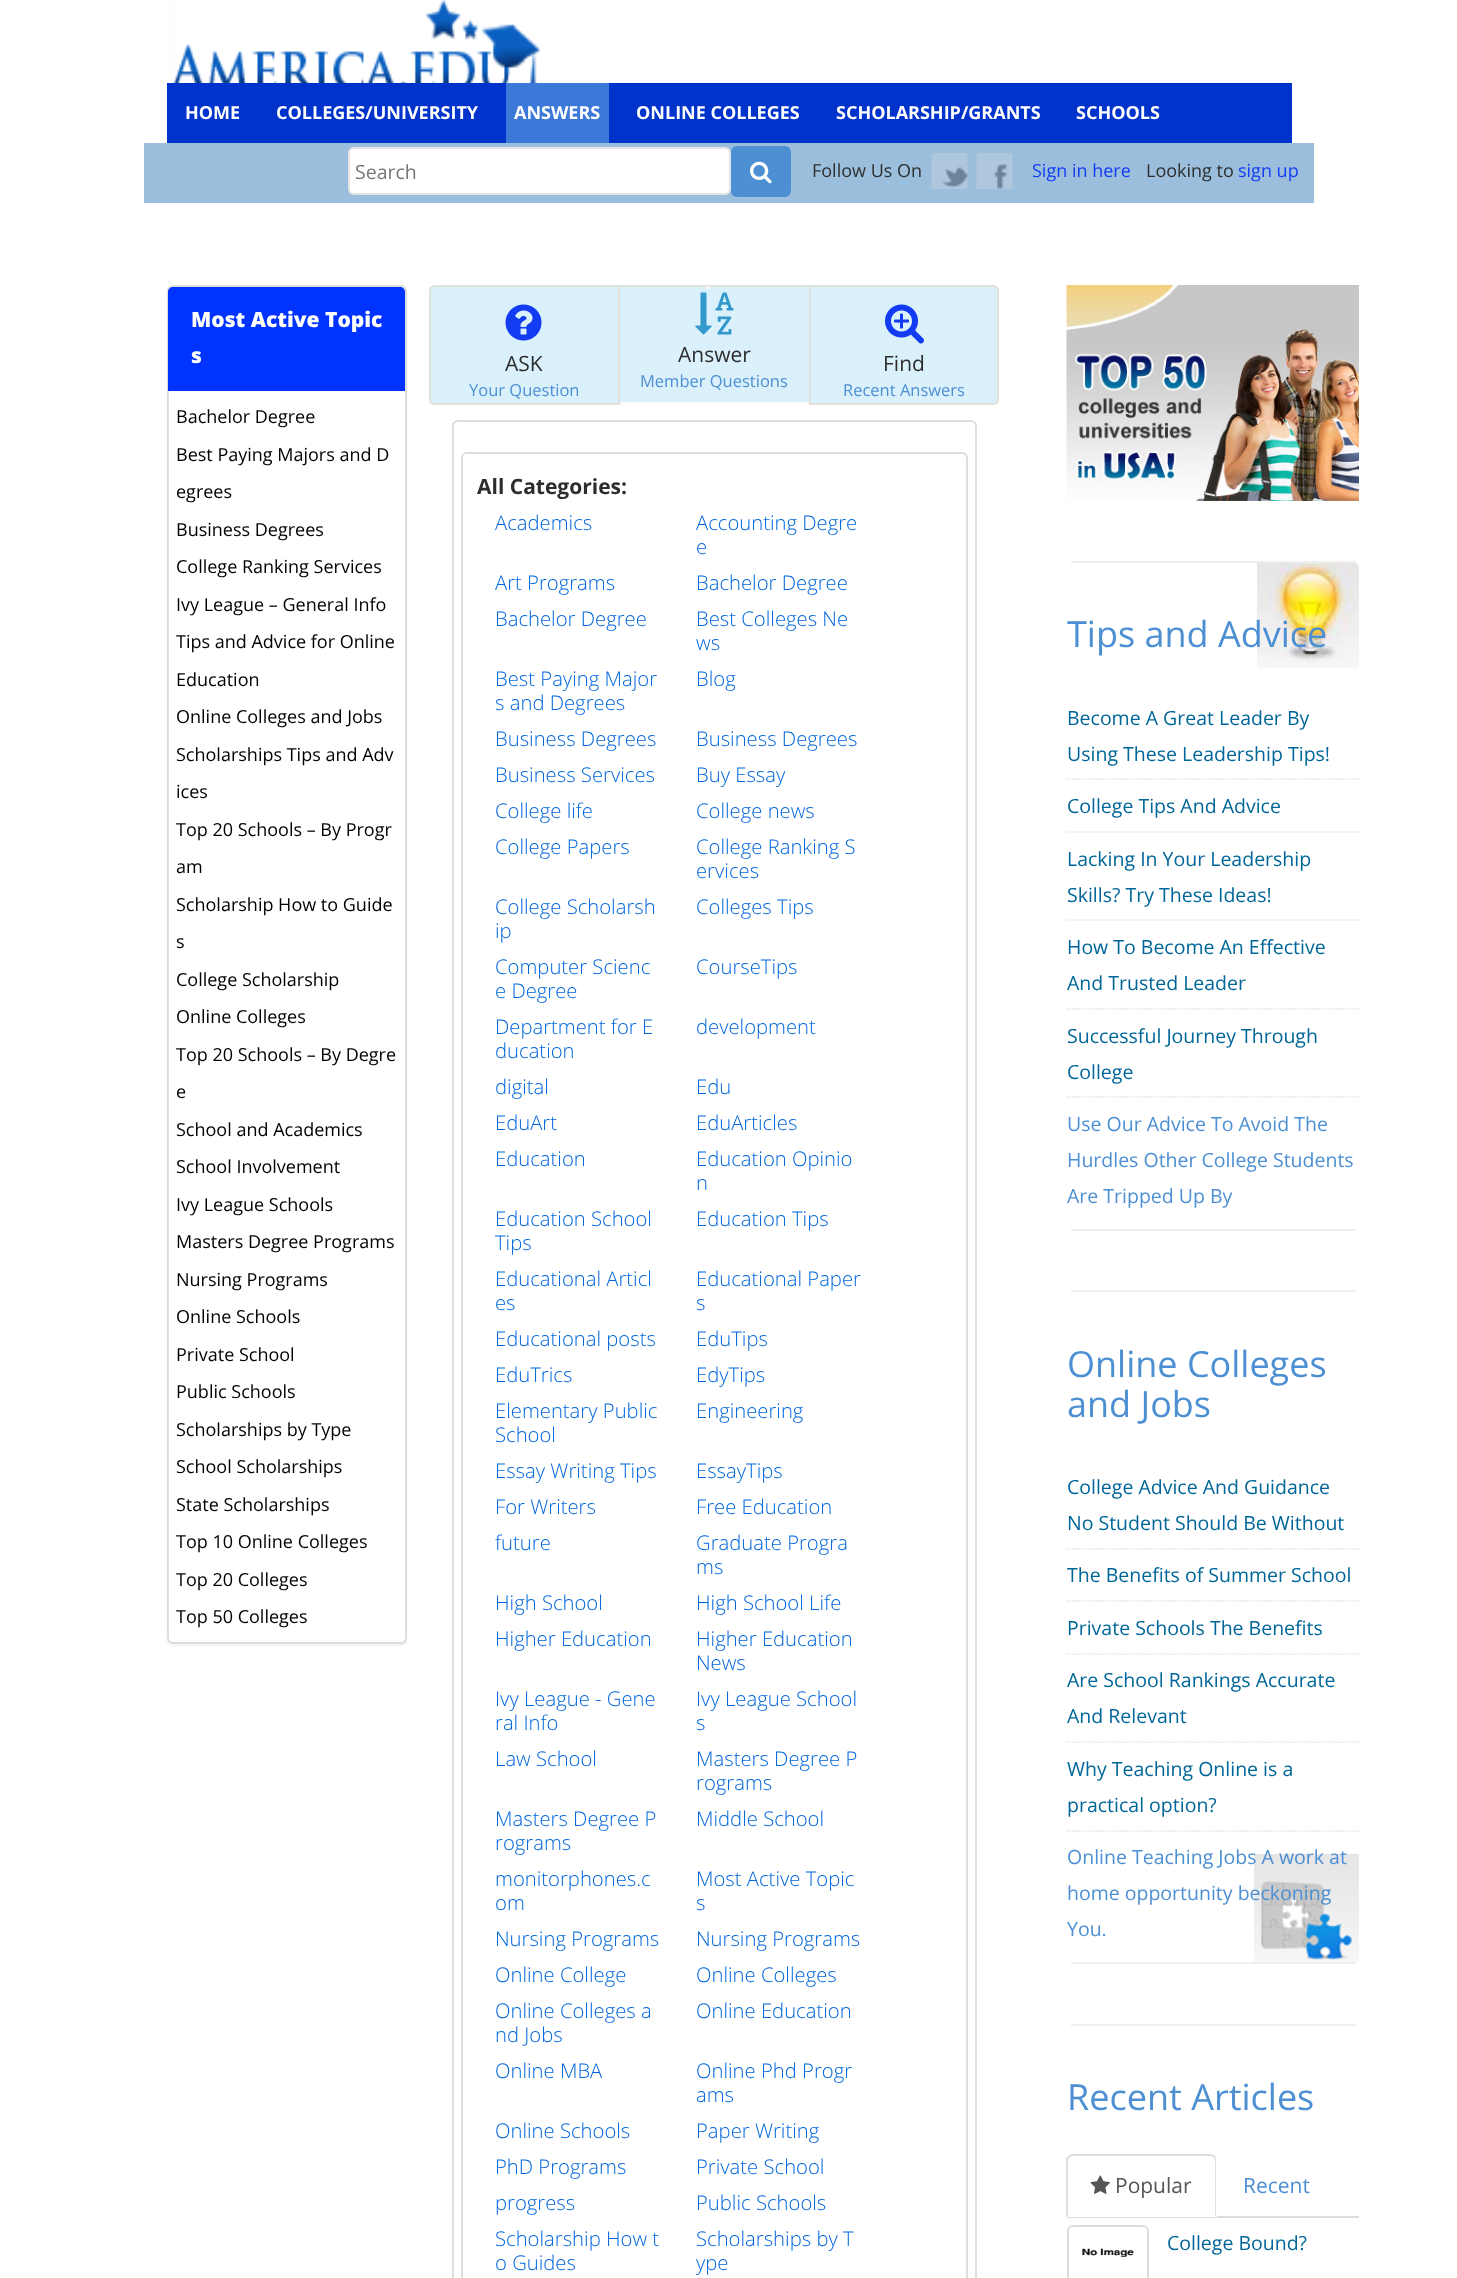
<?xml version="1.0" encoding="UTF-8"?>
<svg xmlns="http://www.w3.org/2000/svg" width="1457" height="2278">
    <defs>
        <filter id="blur1" x="-50%" y="-200%" width="200%" height="500%"><feGaussianBlur stdDeviation="1"/></filter>
    </defs>
    <rect width="100%" height="100%" fill="#FFFFFF"/>
    <image x="168" y="0" width="373" height="83" href="img_01.png"/>
    <rect x="167" y="83" width="1125" height="60" fill="#0033CC"/>
    <text x="185" y="119" font-family="Open Sans" font-size="18" font-weight="700" fill="#FFFFFF">HOME</text>
    <text x="276" y="119" font-family="Open Sans" font-size="18" font-weight="700" fill="#FFFFFF">COLLEGES/UNIVERSITY</text>
    <rect x="506" y="83" width="103" height="60" fill="#3C78D8"/>
    <text x="514" y="119" font-family="Open Sans" font-size="18" font-weight="700" fill="#FFFFFF">ANSWERS</text>
    <text x="636" y="119" font-family="Open Sans" font-size="18" font-weight="700" fill="#FFFFFF">ONLINE COLLEGES</text>
    <text x="836" y="119" font-family="Open Sans" font-size="18" font-weight="700" fill="#FFFFFF">SCHOLARSHIP/GRANTS</text>
    <text x="1076" y="119" font-family="Open Sans" font-size="18" font-weight="700" fill="#FFFFFF">SCHOOLS</text>
    <rect x="144" y="143" width="1170" height="60" fill="#9ABEDC"/>
    <rect x="349" y="148" width="381" height="46" rx="5" fill="#FFFFFF" stroke="#E4E4E4" stroke-width="2"/>
    <text x="355" y="179" font-family="Open Sans" font-size="19.5" fill="#757575">Search</text>
    <rect x="731" y="146" width="60" height="51" rx="6" fill="#4C8FD3"/>
    <image x="750" y="161" width="22" height="23" href="img_02.png"/>
    <text x="812" y="177" font-family="Open Sans" font-size="18" fill="#2D2D2D">Follow Us On</text>
    <image x="931" y="153" width="37" height="36" href="img_03.png"/>
    <image x="976" y="153" width="37" height="36" href="img_04.png"/>
    <text x="1032" y="177" font-family="Open Sans" font-size="18" fill="#133CF2">Sign in here</text>
    <text x="1146" y="177" font-family="Open Sans" font-size="18" fill="#2D2D2D">Looking to</text>
    <text x="1238" y="177" font-family="Open Sans" font-size="18" fill="#133CF2">sign up</text>
    <rect x="167" y="287" width="240" height="1359" rx="6" fill="#000000" fill-opacity="0.05" filter="url(#blur1)"/>
    <rect x="168" y="286" width="238" height="1357" rx="5" fill="#FFFFFF" stroke="#DDDDDD" stroke-width="2"/>
    <path d="M 173 287 H 400 C 403 287 405 289 405 292 V 390 H 168 V 292 C 168 289 170 287 173 287 Z" fill="#0033FF"/>
    <rect x="168" y="390" width="237" height="1" fill="#0033FF"/>
    <text font-family="Open Sans" font-size="21" font-weight="800" fill="#FFFFFF">
        <tspan x="191" y="327">Most Active Topic</tspan>
        <tspan x="191" y="363">s</tspan>
    </text>
    <text x="176" y="423" font-family="Open Sans" font-size="18" fill="#000000">Bachelor Degree</text>
    <text x="176" y="461" font-family="Open Sans" font-size="18" fill="#000000">Best Paying Majors and D</text>
    <text x="176" y="498" font-family="Open Sans" font-size="18" fill="#000000">egrees</text>
    <text x="176" y="536" font-family="Open Sans" font-size="18" fill="#000000">Business Degrees</text>
    <text x="176" y="573" font-family="Open Sans" font-size="18" fill="#000000">College Ranking Services</text>
    <text x="176" y="611" font-family="Open Sans" font-size="18" fill="#000000">Ivy League – General Info</text>
    <text x="176" y="648" font-family="Open Sans" font-size="18" fill="#000000">Tips and Advice for Online</text>
    <text x="176" y="686" font-family="Open Sans" font-size="18" fill="#000000">Education</text>
    <text x="176" y="723" font-family="Open Sans" font-size="18" fill="#000000">Online Colleges and Jobs</text>
    <text x="176" y="761" font-family="Open Sans" font-size="18" fill="#000000">Scholarships Tips and Adv</text>
    <text x="176" y="798" font-family="Open Sans" font-size="18" fill="#000000">ices</text>
    <text x="176" y="836" font-family="Open Sans" font-size="18" fill="#000000">Top 20 Schools – By Progr</text>
    <text x="176" y="873" font-family="Open Sans" font-size="18" fill="#000000">am</text>
    <text x="176" y="911" font-family="Open Sans" font-size="18" fill="#000000">Scholarship How to Guide</text>
    <text x="176" y="948" font-family="Open Sans" font-size="18" fill="#000000">s</text>
    <text x="176" y="986" font-family="Open Sans" font-size="18" fill="#000000">College Scholarship</text>
    <text x="176" y="1023" font-family="Open Sans" font-size="18" fill="#000000">Online Colleges</text>
    <text x="176" y="1061" font-family="Open Sans" font-size="18" fill="#000000">Top 20 Schools – By Degre</text>
    <text x="176" y="1098" font-family="Open Sans" font-size="18" fill="#000000">e</text>
    <text x="176" y="1136" font-family="Open Sans" font-size="18" fill="#000000">School and Academics</text>
    <text x="176" y="1173" font-family="Open Sans" font-size="18" fill="#000000">School Involvement</text>
    <text x="176" y="1211" font-family="Open Sans" font-size="18" fill="#000000">Ivy League Schools</text>
    <text x="176" y="1248" font-family="Open Sans" font-size="18" fill="#000000">Masters Degree Programs</text>
    <text x="176" y="1286" font-family="Open Sans" font-size="18" fill="#000000">Nursing Programs</text>
    <text x="176" y="1323" font-family="Open Sans" font-size="18" fill="#000000">Online Schools</text>
    <text x="176" y="1361" font-family="Open Sans" font-size="18" fill="#000000">Private School</text>
    <text x="176" y="1398" font-family="Open Sans" font-size="18" fill="#000000">Public Schools</text>
    <text x="176" y="1436" font-family="Open Sans" font-size="18" fill="#000000">Scholarships by Type</text>
    <text x="176" y="1473" font-family="Open Sans" font-size="18" fill="#000000">School Scholarships</text>
    <text x="176" y="1511" font-family="Open Sans" font-size="18" fill="#000000">State Scholarships</text>
    <text x="176" y="1548" font-family="Open Sans" font-size="18" fill="#000000">Top 10 Online Colleges</text>
    <text x="176" y="1586" font-family="Open Sans" font-size="18" fill="#000000">Top 20 Colleges</text>
    <text x="176" y="1623" font-family="Open Sans" font-size="18" fill="#000000">Top 50 Colleges</text>
    <path d="M 435 286 H 619 V 404 H 435 C 432 404 430 402 430 399 V 291 C 430 288 432 286 435 286 Z" fill="#DAF1FC" stroke="#E0E1DB" stroke-width="2"/>
    <image x="505" y="304" width="37" height="37" href="img_05.png"/>
    <text x="505" y="371" font-family="Open Sans" font-size="21" fill="#2D2D2D">ASK</text>
    <text x="469" y="396" font-family="Open Sans" font-size="16.5" fill="#4C8FD3">Your Question</text>
    <rect x="620" y="287" width="189" height="115" fill="#DAF1FC"/>
    <rect x="620" y="285" width="189" height="2" fill="#E0E1DB"/>
    <rect x="620" y="402" width="189" height="3" fill="#FFFAFA"/>
    <path d="M 705 286.5 H 711 L 708 289.5 Z" fill="#FFFAFA"/>
    <image x="695" y="292" width="39" height="43" href="img_06.png"/>
    <text x="678" y="362" font-family="Open Sans" font-size="21" fill="#2D2D2D">Answer</text>
    <text x="640" y="387" font-family="Open Sans" font-size="16.5" fill="#4C8FD3">Member Questions</text>
    <path d="M 810 286 H 993 C 996 286 998 288 998 291 V 399 C 998 402 996 404 993 404 H 810 Z" fill="#DAF1FC" stroke="#E0E1DB" stroke-width="2"/>
    <image x="885" y="304" width="39" height="40" href="img_07.png"/>
    <text x="883" y="371" font-family="Open Sans" font-size="21" fill="#2D2D2D">Find</text>
    <text x="843" y="396" font-family="Open Sans" font-size="16.5" fill="#4C8FD3">Recent Answers</text>
    <rect x="453" y="421" width="523" height="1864" rx="5" fill="none" stroke="#DDDDDD" stroke-width="2"/>
    <rect x="462" y="453" width="505" height="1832" rx="5" fill="none" stroke="#DDDDDD" stroke-width="2"/>
    <text x="477" y="494" font-family="Open Sans" font-size="21" font-weight="700" fill="#2D2D2D">All Categories:</text>
    <text x="495" y="530" font-family="Open Sans" font-size="20.25" font-weight="300" fill="#0066DD">Academics</text>
    <text font-family="Open Sans" font-size="20.25" font-weight="300" fill="#0066DD">
        <tspan x="696" y="530">Accounting Degre</tspan>
        <tspan x="696" y="554">e</tspan>
    </text>
    <text x="495" y="590" font-family="Open Sans" font-size="20.25" font-weight="300" fill="#0066DD">Art Programs</text>
    <text x="696" y="590" font-family="Open Sans" font-size="20.25" font-weight="300" fill="#0066DD">Bachelor Degree</text>
    <text x="495" y="626" font-family="Open Sans" font-size="20.25" font-weight="300" fill="#0066DD">Bachelor Degree</text>
    <text font-family="Open Sans" font-size="20.25" font-weight="300" fill="#0066DD">
        <tspan x="696" y="626">Best Colleges Ne</tspan>
        <tspan x="696" y="650">ws</tspan>
    </text>
    <text font-family="Open Sans" font-size="20.25" font-weight="300" fill="#0066DD">
        <tspan x="495" y="686">Best Paying Major</tspan>
        <tspan x="495" y="710">s and Degrees</tspan>
    </text>
    <text x="696" y="686" font-family="Open Sans" font-size="20.25" font-weight="300" fill="#0066DD">Blog</text>
    <text x="495" y="746" font-family="Open Sans" font-size="20.25" font-weight="300" fill="#0066DD">Business Degrees</text>
    <text x="696" y="746" font-family="Open Sans" font-size="20.25" font-weight="300" fill="#0066DD">Business Degrees</text>
    <text x="495" y="782" font-family="Open Sans" font-size="20.25" font-weight="300" fill="#0066DD">Business Services</text>
    <text x="696" y="782" font-family="Open Sans" font-size="20.25" font-weight="300" fill="#0066DD">Buy Essay</text>
    <text x="495" y="818" font-family="Open Sans" font-size="20.25" font-weight="300" fill="#0066DD">College life</text>
    <text x="696" y="818" font-family="Open Sans" font-size="20.25" font-weight="300" fill="#0066DD">College news</text>
    <text x="495" y="854" font-family="Open Sans" font-size="20.25" font-weight="300" fill="#0066DD">College Papers</text>
    <text font-family="Open Sans" font-size="20.25" font-weight="300" fill="#0066DD">
        <tspan x="696" y="854">College Ranking S</tspan>
        <tspan x="696" y="878">ervices</tspan>
    </text>
    <text font-family="Open Sans" font-size="20.25" font-weight="300" fill="#0066DD">
        <tspan x="495" y="914">College Scholarsh</tspan>
        <tspan x="495" y="938">ip</tspan>
    </text>
    <text x="696" y="914" font-family="Open Sans" font-size="20.25" font-weight="300" fill="#0066DD">Colleges Tips</text>
    <text font-family="Open Sans" font-size="20.25" font-weight="300" fill="#0066DD">
        <tspan x="495" y="974">Computer Scienc</tspan>
        <tspan x="495" y="998">e Degree</tspan>
    </text>
    <text x="696" y="974" font-family="Open Sans" font-size="20.25" font-weight="300" fill="#0066DD">CourseTips</text>
    <text font-family="Open Sans" font-size="20.25" font-weight="300" fill="#0066DD">
        <tspan x="495" y="1034">Department for E</tspan>
        <tspan x="495" y="1058">ducation</tspan>
    </text>
    <text x="696" y="1034" font-family="Open Sans" font-size="20.25" font-weight="300" fill="#0066DD">development</text>
    <text x="495" y="1094" font-family="Open Sans" font-size="20.25" font-weight="300" fill="#0066DD">digital</text>
    <text x="696" y="1094" font-family="Open Sans" font-size="20.25" font-weight="300" fill="#0066DD">Edu</text>
    <text x="495" y="1130" font-family="Open Sans" font-size="20.25" font-weight="300" fill="#0066DD">EduArt</text>
    <text x="696" y="1130" font-family="Open Sans" font-size="20.25" font-weight="300" fill="#0066DD">EduArticles</text>
    <text x="495" y="1166" font-family="Open Sans" font-size="20.25" font-weight="300" fill="#0066DD">Education</text>
    <text font-family="Open Sans" font-size="20.25" font-weight="300" fill="#0066DD">
        <tspan x="696" y="1166">Education Opinio</tspan>
        <tspan x="696" y="1190">n</tspan>
    </text>
    <text font-family="Open Sans" font-size="20.25" font-weight="300" fill="#0066DD">
        <tspan x="495" y="1226">Education School</tspan>
        <tspan x="495" y="1250">Tips</tspan>
    </text>
    <text x="696" y="1226" font-family="Open Sans" font-size="20.25" font-weight="300" fill="#0066DD">Education Tips</text>
    <text font-family="Open Sans" font-size="20.25" font-weight="300" fill="#0066DD">
        <tspan x="495" y="1286">Educational Articl</tspan>
        <tspan x="495" y="1310">es</tspan>
    </text>
    <text font-family="Open Sans" font-size="20.25" font-weight="300" fill="#0066DD">
        <tspan x="696" y="1286">Educational Paper</tspan>
        <tspan x="696" y="1310">s</tspan>
    </text>
    <text x="495" y="1346" font-family="Open Sans" font-size="20.25" font-weight="300" fill="#0066DD">Educational posts</text>
    <text x="696" y="1346" font-family="Open Sans" font-size="20.25" font-weight="300" fill="#0066DD">EduTips</text>
    <text x="495" y="1382" font-family="Open Sans" font-size="20.25" font-weight="300" fill="#0066DD">EduTrics</text>
    <text x="696" y="1382" font-family="Open Sans" font-size="20.25" font-weight="300" fill="#0066DD">EdyTips</text>
    <text font-family="Open Sans" font-size="20.25" font-weight="300" fill="#0066DD">
        <tspan x="495" y="1418">Elementary Public</tspan>
        <tspan x="495" y="1442">School</tspan>
    </text>
    <text x="696" y="1418" font-family="Open Sans" font-size="20.25" font-weight="300" fill="#0066DD">Engineering</text>
    <text x="495" y="1478" font-family="Open Sans" font-size="20.25" font-weight="300" fill="#0066DD">Essay Writing Tips</text>
    <text x="696" y="1478" font-family="Open Sans" font-size="20.25" font-weight="300" fill="#0066DD">EssayTips</text>
    <text x="495" y="1514" font-family="Open Sans" font-size="20.25" font-weight="300" fill="#0066DD">For Writers</text>
    <text x="696" y="1514" font-family="Open Sans" font-size="20.25" font-weight="300" fill="#0066DD">Free Education</text>
    <text x="495" y="1550" font-family="Open Sans" font-size="20.25" font-weight="300" fill="#0066DD">future</text>
    <text font-family="Open Sans" font-size="20.25" font-weight="300" fill="#0066DD">
        <tspan x="696" y="1550">Graduate Progra</tspan>
        <tspan x="696" y="1574">ms</tspan>
    </text>
    <text x="495" y="1610" font-family="Open Sans" font-size="20.25" font-weight="300" fill="#0066DD">High School</text>
    <text x="696" y="1610" font-family="Open Sans" font-size="20.25" font-weight="300" fill="#0066DD">High School Life</text>
    <text x="495" y="1646" font-family="Open Sans" font-size="20.25" font-weight="300" fill="#0066DD">Higher Education</text>
    <text font-family="Open Sans" font-size="20.25" font-weight="300" fill="#0066DD">
        <tspan x="696" y="1646">Higher Education</tspan>
        <tspan x="696" y="1670">News</tspan>
    </text>
    <text font-family="Open Sans" font-size="20.25" font-weight="300" fill="#0066DD">
        <tspan x="495" y="1706">Ivy League - Gene</tspan>
        <tspan x="495" y="1730">ral Info</tspan>
    </text>
    <text font-family="Open Sans" font-size="20.25" font-weight="300" fill="#0066DD">
        <tspan x="696" y="1706">Ivy League School</tspan>
        <tspan x="696" y="1730">s</tspan>
    </text>
    <text x="495" y="1766" font-family="Open Sans" font-size="20.25" font-weight="300" fill="#0066DD">Law School</text>
    <text font-family="Open Sans" font-size="20.25" font-weight="300" fill="#0066DD">
        <tspan x="696" y="1766">Masters Degree P</tspan>
        <tspan x="696" y="1790">rograms</tspan>
    </text>
    <text font-family="Open Sans" font-size="20.25" font-weight="300" fill="#0066DD">
        <tspan x="495" y="1826">Masters Degree P</tspan>
        <tspan x="495" y="1850">rograms</tspan>
    </text>
    <text x="696" y="1826" font-family="Open Sans" font-size="20.25" font-weight="300" fill="#0066DD">Middle School</text>
    <text font-family="Open Sans" font-size="20.25" font-weight="300" fill="#0066DD">
        <tspan x="495" y="1886">monitorphones.c</tspan>
        <tspan x="495" y="1910">om</tspan>
    </text>
    <text font-family="Open Sans" font-size="20.25" font-weight="300" fill="#0066DD">
        <tspan x="696" y="1886">Most Active Topic</tspan>
        <tspan x="696" y="1910">s</tspan>
    </text>
    <text x="495" y="1946" font-family="Open Sans" font-size="20.25" font-weight="300" fill="#0066DD">Nursing Programs</text>
    <text x="696" y="1946" font-family="Open Sans" font-size="20.25" font-weight="300" fill="#0066DD">Nursing Programs</text>
    <text x="495" y="1982" font-family="Open Sans" font-size="20.25" font-weight="300" fill="#0066DD">Online College</text>
    <text x="696" y="1982" font-family="Open Sans" font-size="20.25" font-weight="300" fill="#0066DD">Online Colleges</text>
    <text font-family="Open Sans" font-size="20.25" font-weight="300" fill="#0066DD">
        <tspan x="495" y="2018">Online Colleges a</tspan>
        <tspan x="495" y="2042">nd Jobs</tspan>
    </text>
    <text x="696" y="2018" font-family="Open Sans" font-size="20.25" font-weight="300" fill="#0066DD">Online Education</text>
    <text x="495" y="2078" font-family="Open Sans" font-size="20.25" font-weight="300" fill="#0066DD">Online MBA</text>
    <text font-family="Open Sans" font-size="20.25" font-weight="300" fill="#0066DD">
        <tspan x="696" y="2078">Online Phd Progr</tspan>
        <tspan x="696" y="2102">ams</tspan>
    </text>
    <text x="495" y="2138" font-family="Open Sans" font-size="20.25" font-weight="300" fill="#0066DD">Online Schools</text>
    <text x="696" y="2138" font-family="Open Sans" font-size="20.25" font-weight="300" fill="#0066DD">Paper Writing</text>
    <text x="495" y="2174" font-family="Open Sans" font-size="20.25" font-weight="300" fill="#0066DD">PhD Programs</text>
    <text x="696" y="2174" font-family="Open Sans" font-size="20.25" font-weight="300" fill="#0066DD">Private School</text>
    <text x="495" y="2210" font-family="Open Sans" font-size="20.25" font-weight="300" fill="#0066DD">progress</text>
    <text x="696" y="2210" font-family="Open Sans" font-size="20.25" font-weight="300" fill="#0066DD">Public Schools</text>
    <text font-family="Open Sans" font-size="20.25" font-weight="300" fill="#0066DD">
        <tspan x="495" y="2246">Scholarship How t</tspan>
        <tspan x="495" y="2270">o Guides</tspan>
    </text>
    <text font-family="Open Sans" font-size="20.25" font-weight="300" fill="#0066DD">
        <tspan x="696" y="2246">Scholarships by T</tspan>
        <tspan x="696" y="2270">ype</tspan>
    </text>
    <image x="1066" y="285" width="293" height="216" href="img_08.png"/>
    <image x="1257" y="562" width="102" height="106" href="img_09.png"/>
    <rect x="1071" y="561" width="285" height="2" fill="#EFEFEF"/>
    <rect x="1071" y="1229" width="285" height="2" fill="#EFEFEF"/>
    <text x="1067" y="647" font-family="Open Sans" font-size="36" fill="#4C8FD3">Tips and Advice</text>
    <path d="M 1066.5 779 H 1359" fill="none" stroke="#E2E2E2" stroke-width="1.5" stroke-dasharray="1.5 1.5"/>
    <text font-family="Open Sans" font-size="19.5" fill="#006699">
        <tspan x="1067" y="725">Become A Great Leader By</tspan>
        <tspan x="1067" y="761">Using These Leadership Tips!</tspan>
    </text>
    <path d="M 1066.5 832 H 1359" fill="none" stroke="#E2E2E2" stroke-width="1.5" stroke-dasharray="1.5 1.5"/>
    <text x="1067" y="813" font-family="Open Sans" font-size="19.5" fill="#006699">College Tips And Advice</text>
    <path d="M 1066.5 920 H 1359" fill="none" stroke="#E2E2E2" stroke-width="1.5" stroke-dasharray="1.5 1.5"/>
    <text font-family="Open Sans" font-size="19.5" fill="#006699">
        <tspan x="1067" y="866">Lacking In Your Leadership</tspan>
        <tspan x="1067" y="902">Skills? Try These Ideas!</tspan>
    </text>
    <path d="M 1066.5 1009 H 1359" fill="none" stroke="#E2E2E2" stroke-width="1.5" stroke-dasharray="1.5 1.5"/>
    <text font-family="Open Sans" font-size="19.5" fill="#006699">
        <tspan x="1067" y="954">How To Become An Effective</tspan>
        <tspan x="1067" y="990">And Trusted Leader</tspan>
    </text>
    <path d="M 1066.5 1097 H 1359" fill="none" stroke="#E2E2E2" stroke-width="1.5" stroke-dasharray="1.5 1.5"/>
    <text font-family="Open Sans" font-size="19.5" fill="#006699">
        <tspan x="1067" y="1043">Successful Journey Through</tspan>
        <tspan x="1067" y="1079">College</tspan>
    </text>
    <text font-family="Open Sans" font-size="19.5" fill="#4C8FD3">
        <tspan x="1067" y="1131">Use Our Advice To Avoid The</tspan>
        <tspan x="1067" y="1167">Hurdles Other College Students</tspan>
        <tspan x="1067" y="1203">Are Tripped Up By</tspan>
    </text>
    <image x="1254" y="1854" width="105" height="108" href="img_10.png"/>
    <rect x="1071" y="1290" width="285" height="2" fill="#EFEFEF"/>
    <rect x="1071" y="1962" width="285" height="2" fill="#EFEFEF"/>
    <text font-family="Open Sans" font-size="36" fill="#4C8FD3">
        <tspan x="1067" y="1377">Online Colleges</tspan>
        <tspan x="1067" y="1417">and Jobs</tspan>
    </text>
    <path d="M 1066.5 1549 H 1359" fill="none" stroke="#E2E2E2" stroke-width="1.5" stroke-dasharray="1.5 1.5"/>
    <text font-family="Open Sans" font-size="19.5" fill="#006699">
        <tspan x="1067" y="1494">College Advice And Guidance</tspan>
        <tspan x="1067" y="1530">No Student Should Be Without</tspan>
    </text>
    <path d="M 1066.5 1601 H 1359" fill="none" stroke="#E2E2E2" stroke-width="1.5" stroke-dasharray="1.5 1.5"/>
    <text x="1067" y="1582" font-family="Open Sans" font-size="19.5" fill="#006699">The Benefits of Summer School</text>
    <path d="M 1066.5 1654 H 1359" fill="none" stroke="#E2E2E2" stroke-width="1.5" stroke-dasharray="1.5 1.5"/>
    <text x="1067" y="1635" font-family="Open Sans" font-size="19.5" fill="#006699">Private Schools The Benefits</text>
    <path d="M 1066.5 1742 H 1359" fill="none" stroke="#E2E2E2" stroke-width="1.5" stroke-dasharray="1.5 1.5"/>
    <text font-family="Open Sans" font-size="19.5" fill="#006699">
        <tspan x="1067" y="1687">Are School Rankings Accurate</tspan>
        <tspan x="1067" y="1723">And Relevant</tspan>
    </text>
    <path d="M 1066.5 1831 H 1359" fill="none" stroke="#E2E2E2" stroke-width="1.5" stroke-dasharray="1.5 1.5"/>
    <text font-family="Open Sans" font-size="19.5" fill="#006699">
        <tspan x="1067" y="1776">Why Teaching Online is a</tspan>
        <tspan x="1067" y="1812">practical option?</tspan>
    </text>
    <text font-family="Open Sans" font-size="19.5" fill="#4C8FD3">
        <tspan x="1067" y="1864">Online Teaching Jobs A work at</tspan>
        <tspan x="1067" y="1900">home opportunity beckoning</tspan>
        <tspan x="1067" y="1936">You.</tspan>
    </text>
    <rect x="1071" y="2024" width="285" height="2" fill="#EFEFEF"/>
    <text x="1067" y="2110" font-family="Open Sans" font-size="36" fill="#4C8FD3">Recent Articles</text>
    <rect x="1067" y="2216" width="292" height="2" fill="#DDDDDD"/>
    <path d="M 1073 2154 H 1211 C 1214.5 2154 1217 2156.5 1217 2160 V 2217 H 1067 V 2160 C 1067 2156.5 1069.5 2154 1073 2154 Z" fill="#FFFFFF"/>
    <path d="M 1072 2154 C 1071 2154 1069 2155 1068 2156 L 1070 2157 L 1072 2156 H 1210 C 1211 2156 1213 2156 1213 2157 L 1215 2156 C 1214 2155 1212 2154 1210 2154 Z" fill="#DDDDDD"/>
    <path d="M 1215 2156 C 1216 2157 1216 2159 1216 2160 V 2216 H 1215 V 2159 L 1213 2157 Z" fill="#DDDDDD"/>
    <path d="M 1066 2217 V 2158 L 1068 2156 L 1070 2157 L 1068 2160 V 2216 Z" fill="#DDDDDD"/>
    <image x="1090" y="2175" width="20" height="19" href="img_11.png"/>
    <text x="1115" y="2193" font-family="Open Sans" font-size="21" fill="#555555">Popular</text>
    <text x="1243" y="2193" font-family="Open Sans" font-size="21" fill="#4C8FD3">Recent</text>
    <rect x="1068" y="2226" width="80" height="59" rx="5" fill="none" stroke="#DDDDDD" stroke-width="2"/>
    <image x="1082" y="2248" width="53" height="9" href="img_12.png"/>
    <text x="1167" y="2250" font-family="Open Sans" font-size="19.5" fill="#006699">College Bound?</text>
</svg>
